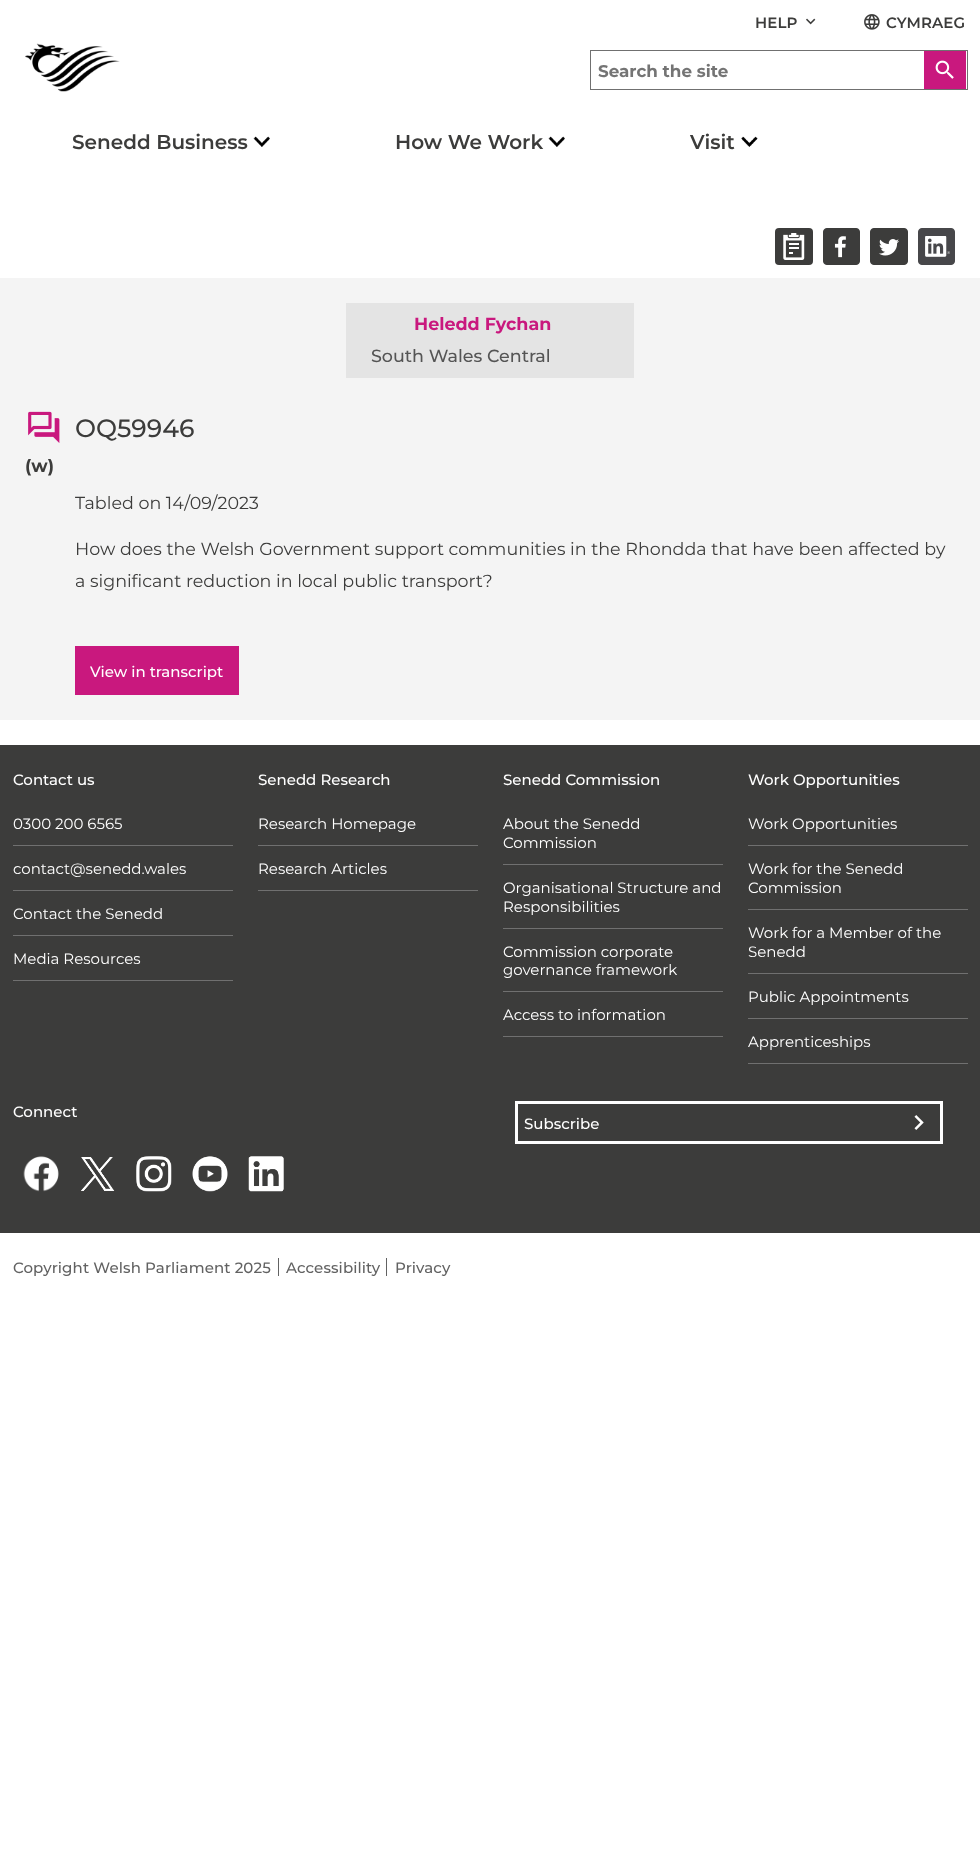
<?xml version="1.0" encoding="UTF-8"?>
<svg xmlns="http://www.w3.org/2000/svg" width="980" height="1868">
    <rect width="100%" height="100%" fill="#FFFFFF"/>
    <text x="755" y="28" font-family="Montserrat" font-size="15" font-weight="600" letter-spacing="0.1" fill="#3C3C3B">HELP</text>
    <image x="806" y="18" width="10" height="7" href="img_01.png"/>
    <image x="864" y="14" width="16" height="16" href="img_02.png"/>
    <text x="886" y="28" font-family="Montserrat" font-size="15" font-weight="600" letter-spacing="0.1" fill="#3C3C3B">CYMRAEG</text>
    <image x="25" y="43" width="95" height="49" href="img_03.png"/>
    <rect x="590.5" y="50.5" width="377" height="39" fill="none" stroke="#707070"/>
    <text x="598" y="77" font-family="Montserrat" font-size="16.75" font-weight="700" fill="#747474">Search the site</text>
    <rect x="924" y="51" width="42" height="38" fill="#C9187E"/>
    <image x="935" y="60" width="19" height="19" href="img_04.png"/>
    <text x="72" y="149" font-family="Montserrat" font-size="20" font-weight="600" fill="#3C3C3B">Senedd Business</text>
    <image x="253" y="136" width="17" height="11" href="img_05.png"/>
    <text x="395" y="149" font-family="Montserrat" font-size="20" font-weight="600" fill="#3C3C3B">How We Work</text>
    <image x="548" y="136" width="17" height="11" href="img_05.png"/>
    <text x="690" y="149" font-family="Montserrat" font-size="20" font-weight="600" fill="#3C3C3B">Visit</text>
    <image x="741" y="136" width="17" height="11" href="img_06.png"/>
    <rect x="775" y="228" width="38" height="37" rx="4" fill="#3C3C3B"/>
    <image x="783" y="233" width="22" height="27" href="img_07.png"/>
    <image x="823" y="228" width="37" height="37" href="img_08.png"/>
    <image x="870" y="228" width="38" height="37" href="img_09.png"/>
    <image x="918" y="228" width="37" height="37" href="img_10.png"/>
    <rect x="0" y="278" width="980" height="442" fill="#F4F4F4"/>
    <rect x="346" y="303" width="288" height="75" fill="#E4E4E4"/>
    <text x="414" y="330" font-family="Montserrat" font-size="17.5" font-weight="700" fill="#C9187E">Heledd Fychan</text>
    <text x="371" y="362" font-family="Montserrat" font-size="17.5" font-weight="500" fill="#555555">South Wales Central</text>
    <image x="28" y="411" width="32" height="32" href="img_11.png"/>
    <text x="75" y="437" font-family="Montserrat" font-size="25" font-weight="500" fill="#3C3C3B">OQ59946</text>
    <text x="25" y="472" font-family="Montserrat" font-size="17.5" font-weight="700" fill="#3C3C3B">(w)</text>
    <text x="75" y="509" font-family="Montserrat" font-size="17.5" fill="#3C3C3B">Tabled on 14/09/2023</text>
    <text font-family="Montserrat" font-size="17.5" fill="#3C3C3B">
        <tspan x="75" y="555">How does the Welsh Government support communities in the Rhondda that have been affected by</tspan>
        <tspan x="75" y="587">a significant reduction in local public transport?</tspan>
    </text>
    <rect x="75" y="646" width="164" height="49" fill="#C9187E"/>
    <text x="90" y="677" font-family="Montserrat" font-size="15" font-weight="500" fill="#FFFFFF">View in transcript</text>
    <rect x="0" y="745" width="980" height="488" fill="#3C3C3B"/>
    <text x="13" y="785" font-family="Montserrat" font-size="15" font-weight="500" fill="#FFFFFF">Contact us</text>
    <rect x="13" y="845" width="220" height="1" fill="#707070"/>
    <text x="13" y="829" font-family="Montserrat" font-size="15" fill="#FFFFFF">0300 200 6565</text>
    <rect x="13" y="890" width="220" height="1" fill="#707070"/>
    <text x="13" y="874" font-family="Montserrat" font-size="15" fill="#FFFFFF">contact@senedd.wales</text>
    <rect x="13" y="935" width="220" height="1" fill="#707070"/>
    <text x="13" y="919" font-family="Montserrat" font-size="15" fill="#FFFFFF">Contact the Senedd</text>
    <rect x="13" y="980" width="220" height="1" fill="#707070"/>
    <text x="13" y="964" font-family="Montserrat" font-size="15" fill="#FFFFFF">Media Resources</text>
    <text x="258" y="785" font-family="Montserrat" font-size="15" font-weight="500" fill="#FFFFFF">Senedd Research</text>
    <rect x="258" y="845" width="220" height="1" fill="#707070"/>
    <text x="258" y="829" font-family="Montserrat" font-size="15" fill="#FFFFFF">Research Homepage</text>
    <rect x="258" y="890" width="220" height="1" fill="#707070"/>
    <text x="258" y="874" font-family="Montserrat" font-size="15" fill="#FFFFFF">Research Articles</text>
    <text x="503" y="785" font-family="Montserrat" font-size="15" font-weight="500" fill="#FFFFFF">Senedd Commission</text>
    <rect x="503" y="864" width="220" height="1" fill="#707070"/>
    <text font-family="Montserrat" font-size="15" fill="#FFFFFF">
        <tspan x="503" y="829">About the Senedd</tspan>
        <tspan x="503" y="848">Commission</tspan>
    </text>
    <rect x="503" y="928" width="220" height="1" fill="#707070"/>
    <text font-family="Montserrat" font-size="15" fill="#FFFFFF">
        <tspan x="503" y="893">Organisational Structure and</tspan>
        <tspan x="503" y="912">Responsibilities</tspan>
    </text>
    <rect x="503" y="991" width="220" height="1" fill="#707070"/>
    <text font-family="Montserrat" font-size="15" fill="#FFFFFF">
        <tspan x="503" y="957">Commission corporate</tspan>
        <tspan x="503" y="975">governance framework</tspan>
    </text>
    <rect x="503" y="1036" width="220" height="1" fill="#707070"/>
    <text x="503" y="1020" font-family="Montserrat" font-size="15" fill="#FFFFFF">Access to information</text>
    <text x="748" y="785" font-family="Montserrat" font-size="15" font-weight="500" fill="#FFFFFF">Work Opportunities</text>
    <rect x="748" y="845" width="220" height="1" fill="#707070"/>
    <text x="748" y="829" font-family="Montserrat" font-size="15" fill="#FFFFFF">Work Opportunities</text>
    <rect x="748" y="909" width="220" height="1" fill="#707070"/>
    <text font-family="Montserrat" font-size="15" fill="#FFFFFF">
        <tspan x="748" y="874">Work for the Senedd</tspan>
        <tspan x="748" y="893">Commission</tspan>
    </text>
    <rect x="748" y="973" width="220" height="1" fill="#707070"/>
    <text font-family="Montserrat" font-size="15" fill="#FFFFFF">
        <tspan x="748" y="938">Work for a Member of the</tspan>
        <tspan x="748" y="957">Senedd</tspan>
    </text>
    <rect x="748" y="1018" width="220" height="1" fill="#707070"/>
    <text x="748" y="1002" font-family="Montserrat" font-size="15" fill="#FFFFFF">Public Appointments</text>
    <rect x="748" y="1063" width="220" height="1" fill="#707070"/>
    <text x="748" y="1047" font-family="Montserrat" font-size="15" fill="#FFFFFF">Apprenticeships</text>
    <text x="13" y="1117" font-family="Montserrat" font-size="15" font-weight="500" fill="#FFFFFF">Connect</text>
    <image x="23" y="1156" width="36" height="36" href="img_12.png"/>
    <image x="81" y="1157" width="34" height="34" href="img_13.png"/>
    <image x="136" y="1156" width="36" height="36" href="img_14.png"/>
    <image x="192" y="1156" width="36" height="36" href="img_15.png"/>
    <image x="248" y="1156" width="36" height="36" href="img_16.png"/>
    <rect x="516.5" y="1102.5" width="425" height="40" fill="none" stroke="#FFFFFF" stroke-width="3"/>
    <text x="524" y="1129" font-family="Montserrat" font-size="15" font-weight="500" fill="#FFFFFF">Subscribe</text>
    <image x="914" y="1115" width="10" height="15" href="img_17.png"/>
    <rect x="278" y="1258" width="1" height="18" fill="#626262"/>
    <text x="13" y="1273" font-family="Montserrat" font-size="15" font-weight="500" letter-spacing="0.1" fill="#626262">Copyright Welsh Parliament 2025</text>
    <rect x="386" y="1258" width="1" height="18" fill="#626262"/>
    <text x="286" y="1273" font-family="Montserrat" font-size="15" font-weight="500" letter-spacing="0.1" fill="#626262">Accessibility</text>
    <text x="395" y="1273" font-family="Montserrat" font-size="15" font-weight="500" letter-spacing="0.1" fill="#626262">Privacy</text>
</svg>
